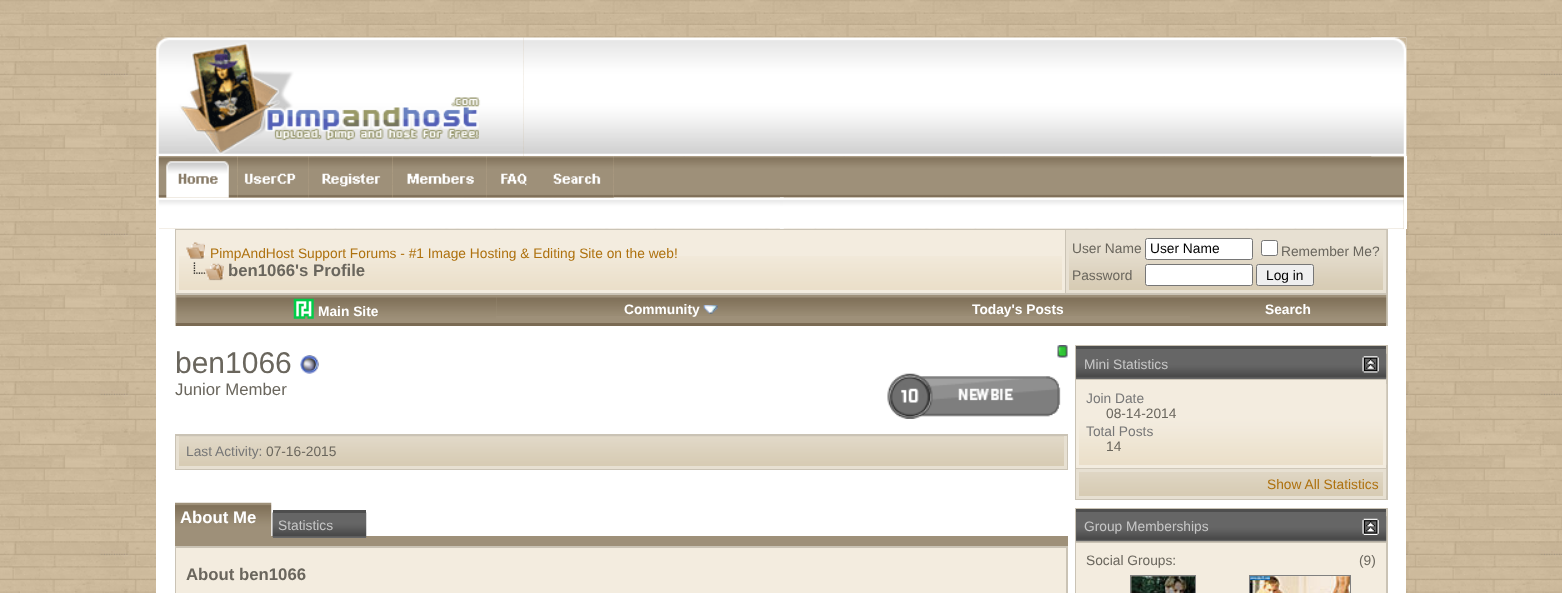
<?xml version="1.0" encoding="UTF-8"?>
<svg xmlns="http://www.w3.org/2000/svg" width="1562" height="593">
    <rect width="100%" height="100%" fill="#FFFFFF"/>
    <image x="0" y="0" width="1562" height="593" href="img_01.png"/>
    <image x="523" y="37" width="884" height="120" href="img_03.png"/>
    <rect x="156" y="156" width="3" height="73" fill="#FFFFFF"/>
    <image x="156" y="37" width="368" height="120" href="img_02.png"/>
    <rect x="1404" y="156" width="3" height="73" fill="#FFFFFF"/>
    <image x="613" y="156" width="791" height="42" href="img_11.png"/>
    <image x="1371" y="37" width="36" height="120" href="img_04.png"/>
    <image x="158" y="197" width="1246" height="32" href="img_12.png"/>
    <image x="158" y="156" width="80" height="42" href="img_05.png"/>
    <image x="237" y="156" width="72" height="42" href="img_06.png"/>
    <image x="308" y="156" width="85" height="42" href="img_07.png"/>
    <image x="392" y="156" width="95" height="42" href="img_08.png"/>
    <image x="486" y="156" width="54" height="42" href="img_09.png"/>
    <image x="540" y="156" width="74" height="42" href="img_10.png"/>
    <image x="780" y="197" width="4" height="32" href="img_13.png"/>
    <rect x="156" y="229" width="1250" height="364" fill="#FFFFFF"/>
    <rect x="175" y="229" width="1213" height="97" fill="#CAC3B5"/>
    <rect x="179" y="233" width="883" height="23" fill="#F3ECDF"/>
    <image x="179" y="256" width="883" height="34" href="img_14.png"/>
    <rect x="177.5" y="231.5" width="886" height="60" fill="none" stroke="#F3ECDF" stroke-width="3"/>
    <image x="186" y="242" width="19" height="17" href="img_15.png"/>
    <text x="210" y="258" font-family="Liberation Sans" font-size="13.75" fill="#AE710E">PimpAndHost Support Forums - #1 Image Hosting &amp; Editing Site on the web!</text>
    <image x="193" y="262" width="31" height="19" href="img_16.png"/>
    <text x="228" y="276" font-family="Liberation Sans" font-size="16.75" font-weight="700" fill="#6A665D">ben1066's Profile</text>
    <image x="1069" y="230" width="318" height="60" href="img_17.png"/>
    <rect x="1067.5" y="231.5" width="317" height="60" fill="none" stroke="#E7E0D2" stroke-width="3"/>
    <text x="1072" y="253" font-family="Liberation Sans" font-size="13.75" fill="#6A665D">User Name</text>
    <rect x="1145.5" y="238.5" width="107" height="21" rx="2" fill="#FFFFFF" stroke="#767676"/>
    <text x="1150" y="253" font-family="Liberation Sans" font-size="13.75" fill="#000000">User Name</text>
    <rect x="1261.5" y="240.5" width="16" height="15" rx="2" fill="#FFFFFF" stroke="#767676"/>
    <text x="1281" y="256" font-family="Liberation Sans" font-size="13.75" fill="#6A665D">Remember Me?</text>
    <text x="1072" y="280" font-family="Liberation Sans" font-size="13.75" fill="#6A665D">Password</text>
    <rect x="1145.5" y="264.5" width="107" height="21" rx="2" fill="#FFFFFF" stroke="#767676"/>
    <rect x="1256.5" y="264.5" width="57" height="21" rx="2" fill="#EFEFEF" stroke="#767676"/>
    <text x="1266" y="280" font-family="Liberation Sans" font-size="13.75" fill="#000000">Log in</text>
    <image x="176" y="295" width="320" height="28" href="img_18.png"/>
    <rect x="176" y="323" width="1014" height="3" fill="#7A6A53"/>
    <image x="293" y="298" width="21" height="21" href="img_19.png"/>
    <text x="318" y="316" font-family="Liberation Sans" font-size="13.75" font-weight="700" fill="#FFFFFF">Main Site</text>
    <rect x="496" y="295" width="694" height="28" fill="#9E9079"/>
    <image x="496" y="297" width="349" height="19" href="img_20.png"/>
    <text x="624" y="314" font-family="Liberation Sans" font-size="13.75" font-weight="700" fill="#FFFFFF">Community</text>
    <image x="703" y="305" width="15" height="9" href="img_21.png"/>
    <image x="845" y="297" width="345" height="19" href="img_22.png"/>
    <text x="972" y="314" font-family="Liberation Sans" font-size="13.75" font-weight="700" fill="#FFFFFF">Today's Posts</text>
    <image x="1190" y="295" width="197" height="30" href="img_23.png"/>
    <rect x="1190" y="323" width="196" height="3" fill="#7A6A53"/>
    <text x="1265" y="314" font-family="Liberation Sans" font-size="13.75" font-weight="700" fill="#FFFFFF">Search</text>
    <text x="175" y="373" font-family="Liberation Sans" font-size="30" fill="#6A665D">ben1066</text>
    <image x="300" y="355" width="19" height="19" href="img_24.png"/>
    <image x="1057" y="345" width="11" height="13" href="img_25.png"/>
    <image x="887" y="373" width="174" height="46" href="img_26.png"/>
    <text x="175" y="395" font-family="Liberation Sans" font-size="16.75" fill="#6A665D">Junior Member</text>
    <rect x="175" y="434" width="893" height="36" fill="#CAC3B5"/>
    <image x="179" y="436" width="885" height="30" href="img_27.png"/>
    <rect x="1064" y="436" width="3" height="33" fill="#E7E0D2"/>
    <rect x="176" y="466" width="890" height="3" fill="#E7E0D2"/>
    <rect x="176" y="436" width="3" height="33" fill="#E7E0D2"/>
    <text x="186" y="456" font-family="Liberation Sans" font-size="13.75" fill="#777777">Last Activity:</text>
    <text x="266" y="456" font-family="Liberation Sans" font-size="13.75" fill="#6A665D">07-16-2015</text>
    <image x="175" y="502" width="97" height="34" href="img_28.png"/>
    <text x="180" y="523" font-family="Liberation Sans" font-size="16.75" font-weight="700" fill="#FFFFFF">About Me</text>
    <rect x="175" y="536" width="893" height="10" fill="#9E9079"/>
    <rect x="273" y="537" width="93" height="1" fill="#666666"/>
    <image x="272" y="512" width="95" height="26" href="img_29.png"/>
    <rect x="273" y="510" width="93" height="3" fill="#4E4E4E"/>
    <text x="278" y="530" font-family="Liberation Sans" font-size="13.75" fill="#C7C7C7">Statistics</text>
    <rect x="175" y="546" width="893" height="47" fill="#CAC3B5"/>
    <rect x="176" y="548" width="890" height="45" fill="#F3ECDF"/>
    <text x="186" y="580" font-family="Liberation Sans" font-size="16.75" font-weight="700" fill="#6A665D">About ben1066</text>
    <rect x="1075" y="345" width="313" height="155" fill="#CAC3B5"/>
    <rect x="1076" y="349" width="310" height="30" fill="#666666"/>
    <image x="1076" y="353" width="311" height="26" href="img_30.png"/>
    <rect x="1076" y="346" width="310" height="3" fill="#4E4E4E"/>
    <text x="1084" y="369" font-family="Liberation Sans" font-size="13.75" fill="#C7C7C7">Mini Statistics</text>
    <image x="1362" y="356" width="17" height="17" href="img_31.png"/>
    <rect x="1079" y="383" width="304" height="1" fill="#F3ECDF"/>
    <image x="1079" y="384" width="308" height="81" href="img_32.png"/>
    <rect x="1077.5" y="381.5" width="307" height="85" fill="none" stroke="#F3ECDF" stroke-width="3"/>
    <text x="1086" y="403" font-family="Liberation Sans" font-size="13.75" fill="#777777">Join Date</text>
    <text x="1106" y="418" font-family="Liberation Sans" font-size="13.75" fill="#6A665D">08-14-2014</text>
    <text x="1086" y="436" font-family="Liberation Sans" font-size="13.75" fill="#777777">Total Posts</text>
    <text x="1106" y="451" font-family="Liberation Sans" font-size="13.75" fill="#6A665D">14</text>
    <image x="1076" y="468" width="311" height="29" href="img_33.png"/>
    <rect x="1077.5" y="470.5" width="307" height="27" fill="none" stroke="#E7E0D2" stroke-width="3"/>
    <text x="1267" y="489" font-family="Liberation Sans" font-size="13.75" fill="#AE710E">Show All Statistics</text>
    <rect x="1075" y="508" width="313" height="85" fill="#CAC3B5"/>
    <rect x="1076" y="512" width="310" height="29" fill="#666666"/>
    <image x="1076" y="516" width="311" height="26" href="img_34.png"/>
    <rect x="1076" y="509" width="310" height="3" fill="#4E4E4E"/>
    <text x="1084" y="531" font-family="Liberation Sans" font-size="13.75" fill="#C7C7C7">Group Memberships</text>
    <image x="1362" y="518" width="17" height="17" href="img_35.png"/>
    <rect x="1076" y="543" width="310" height="50" fill="#F3ECDF"/>
    <text x="1086" y="565" font-family="Liberation Sans" font-size="13.75" fill="#6A665D">Social Groups:</text>
    <text x="1359" y="565" font-family="Liberation Sans" font-size="13.75" fill="#6A665D">(9)</text>
    <rect x="1130.5" y="575.5" width="65" height="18" fill="none" stroke="#808080"/>
    <image x="1131" y="576" width="64" height="17" href="img_36.png"/>
    <rect x="1249.5" y="575.5" width="101" height="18" fill="none" stroke="#808080"/>
    <image x="1250" y="576" width="100" height="17" href="img_37.png"/>
</svg>
